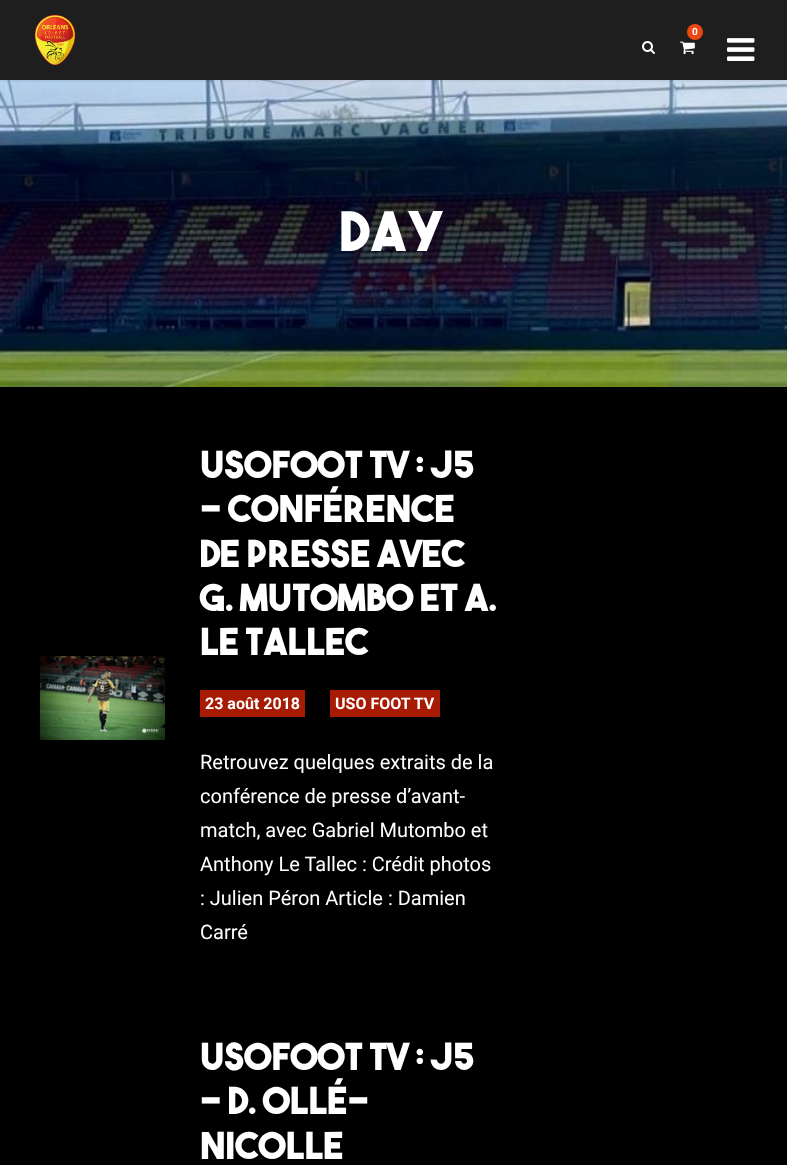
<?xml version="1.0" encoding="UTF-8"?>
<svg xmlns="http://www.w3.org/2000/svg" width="787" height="1165">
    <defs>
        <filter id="blur1" x="-50%" y="-200%" width="200%" height="500%"><feGaussianBlur stdDeviation="1"/></filter>
    </defs>
    <rect width="100%" height="100%" fill="#000000"/>
    <image x="0" y="80" width="787" height="307" href="img_05.png"/>
    <rect x="0" y="1" width="787" height="80" fill="#000000" fill-opacity="0.1" filter="url(#blur1)"/>
    <rect x="0" y="0" width="787" height="80" fill="#1E1E1E"/>
    <image x="35" y="15" width="40" height="50" href="img_01.png"/>
    <circle cx="695" cy="32" r="8" fill="#EC4613"/>
    <text x="692" y="35" font-family="Roboto" font-size="10" font-weight="700" fill="#FFFFFF">0</text>
    <image x="680" y="41" width="15" height="14" href="img_02.png"/>
    <image x="642" y="41" width="13" height="13" href="img_03.png"/>
    <image x="727" y="38" width="28" height="23" href="img_04.png"/>
    <text x="340" y="251" font-family="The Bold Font" font-size="54" font-weight="700" letter-spacing="2" fill="#FFFFFF">DAY</text>
    <image x="40" y="656" width="125" height="84" href="img_06.png"/>
    <text font-family="The Bold Font" font-size="37" font-weight="700" fill="#FFFFFF">
        <tspan x="200" y="478">USOFOOT TV : J5</tspan>
        <tspan x="200" y="522">– Conférence</tspan>
        <tspan x="200" y="567">de presse avec</tspan>
        <tspan x="200" y="611">G. Mutombo et A.</tspan>
        <tspan x="200" y="655">Le Tallec</tspan>
    </text>
    <rect x="200" y="690" width="105" height="27" fill="#A71A04"/>
    <text x="205" y="709" font-family="Roboto" font-size="16" font-weight="700" fill="#FFFFFF">23 août 2018</text>
    <rect x="330" y="690" width="110" height="27" fill="#A71A04"/>
    <text x="335" y="709" font-family="Roboto" font-size="16" font-weight="700" fill="#FFFFFF">USO FOOT TV</text>
    <text font-family="Roboto" font-size="20" fill="#FFFFFF">
        <tspan x="200" y="769">Retrouvez quelques extraits de la</tspan>
        <tspan x="200" y="803">conférence de presse d’avant-</tspan>
        <tspan x="200" y="837">match, avec Gabriel Mutombo et</tspan>
        <tspan x="200" y="871">Anthony Le Tallec : Crédit photos</tspan>
        <tspan x="200" y="905">: Julien Péron Article : Damien</tspan>
        <tspan x="200" y="939">Carré</tspan>
    </text>
    <text font-family="The Bold Font" font-size="37" font-weight="700" fill="#FFFFFF">
        <tspan x="200" y="1070">USOFOOT TV : J5</tspan>
        <tspan x="200" y="1114">– D. Ollé-</tspan>
        <tspan x="200" y="1159">Nicolle</tspan>
    </text>
</svg>
